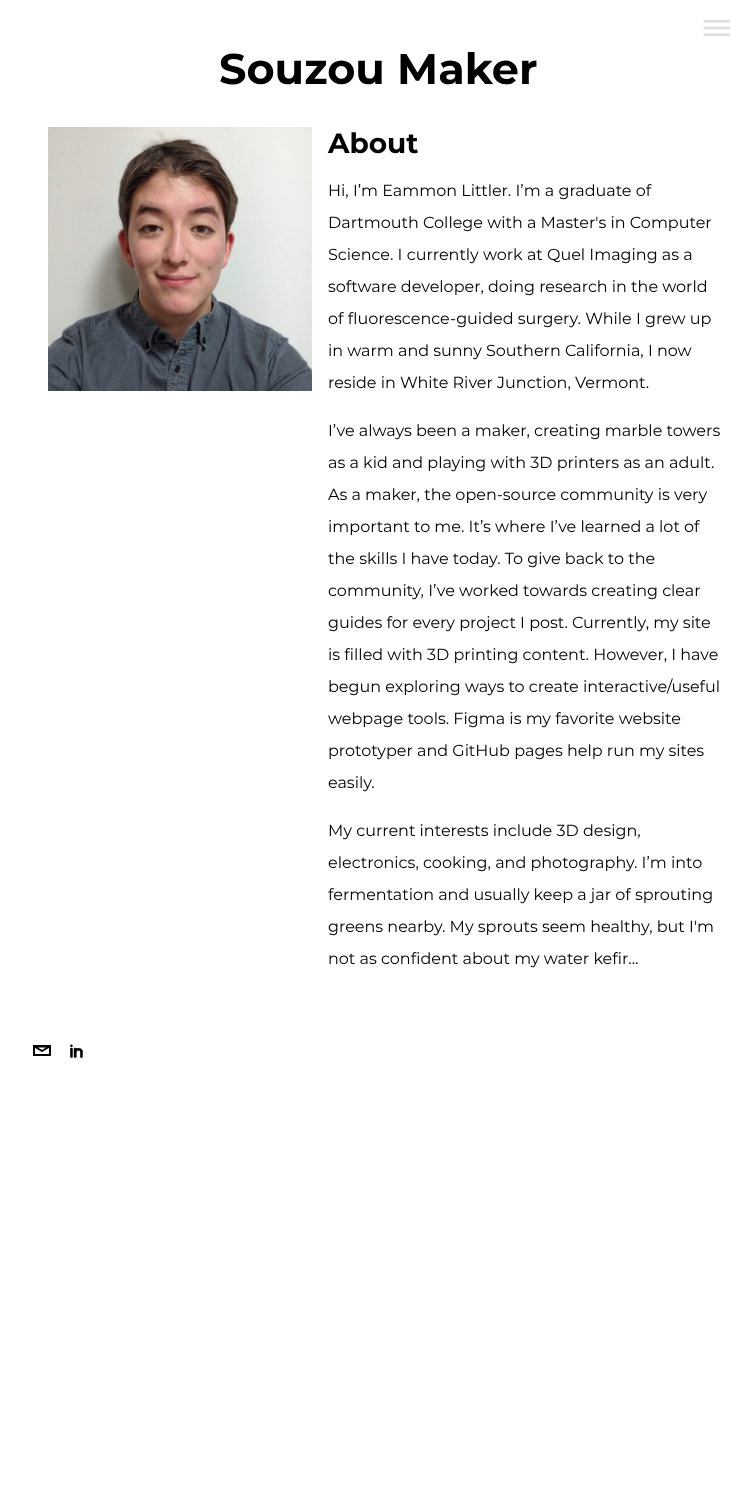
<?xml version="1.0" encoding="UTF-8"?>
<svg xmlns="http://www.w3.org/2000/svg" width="756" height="1486">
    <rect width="100%" height="100%" fill="#FFFFFF"/>
    <image x="703" y="19" width="28" height="18" href="img_01.png"/>
    <text x="219" y="84" font-family="Montserrat" font-size="43" font-weight="700" fill="#000000">Souzou Maker</text>
    <image x="48" y="127" width="264" height="264" href="img_02.png"/>
    <text x="328" y="153" font-family="Montserrat" font-size="28" font-weight="700" fill="#000000">About</text>
    <text x="328" y="196" font-family="Montserrat" font-size="16" fill="#000000">Hi, I’m Eammon Littler. I’m a graduate of</text>
    <text x="328" y="228" font-family="Montserrat" font-size="16" fill="#000000">Dartmouth College with a Master's in Computer</text>
    <text x="328" y="260" font-family="Montserrat" font-size="16" fill="#000000">Science. I currently work at Quel Imaging as a</text>
    <text x="328" y="292" font-family="Montserrat" font-size="16" fill="#000000">software developer, doing research in the world</text>
    <text x="328" y="324" font-family="Montserrat" font-size="16" fill="#000000">of fluorescence-guided surgery. While I grew up</text>
    <text x="328" y="356" font-family="Montserrat" font-size="16" fill="#000000">in warm and sunny Southern California, I now</text>
    <text x="328" y="388" font-family="Montserrat" font-size="16" fill="#000000">reside in White River Junction, Vermont.</text>
    <text x="328" y="436" font-family="Montserrat" font-size="16" fill="#000000">I’ve always been a maker, creating marble towers</text>
    <text x="328" y="468" font-family="Montserrat" font-size="16" fill="#000000">as a kid and playing with 3D printers as an adult.</text>
    <text x="328" y="500" font-family="Montserrat" font-size="16" fill="#000000">As a maker, the open-source community is very</text>
    <text x="328" y="532" font-family="Montserrat" font-size="16" fill="#000000">important to me. It’s where I’ve learned a lot of</text>
    <text x="328" y="564" font-family="Montserrat" font-size="16" fill="#000000">the skills I have today. To give back to the</text>
    <text x="328" y="596" font-family="Montserrat" font-size="16" fill="#000000">community, I’ve worked towards creating clear</text>
    <text x="328" y="628" font-family="Montserrat" font-size="16" fill="#000000">guides for every project I post. Currently, my site</text>
    <text x="328" y="660" font-family="Montserrat" font-size="16" fill="#000000">is filled with 3D printing content. However, I have</text>
    <text x="328" y="692" font-family="Montserrat" font-size="16" fill="#000000">begun exploring ways to create interactive/useful</text>
    <text x="328" y="724" font-family="Montserrat" font-size="16" fill="#000000">webpage tools. Figma is my favorite website</text>
    <text x="328" y="756" font-family="Montserrat" font-size="16" fill="#000000">prototyper and GitHub pages help run my sites</text>
    <text x="328" y="788" font-family="Montserrat" font-size="16" fill="#000000">easily.</text>
    <text x="328" y="836" font-family="Montserrat" font-size="16" fill="#000000">My current interests include 3D design,</text>
    <text x="328" y="868" font-family="Montserrat" font-size="16" fill="#000000">electronics, cooking, and photography. I’m into</text>
    <text x="328" y="900" font-family="Montserrat" font-size="16" fill="#000000">fermentation and usually keep a jar of sprouting</text>
    <text x="328" y="932" font-family="Montserrat" font-size="16" fill="#000000">greens nearby. My sprouts seem healthy, but I'm</text>
    <text x="328" y="964" font-family="Montserrat" font-size="16" fill="#000000">not as confident about my water kefir...</text>
    <rect x="34" y="1046" width="16" height="9" fill="none" stroke="#000000" stroke-width="2"/>
    <image x="70" y="1044" width="13" height="14" href="img_03.png"/>
    <path d="M 42 1051 L 49.5 1046.5 H 34.5 Z" fill="none" stroke="#000000" stroke-width="2" stroke-linecap="round" stroke-linejoin="round"/>
</svg>
